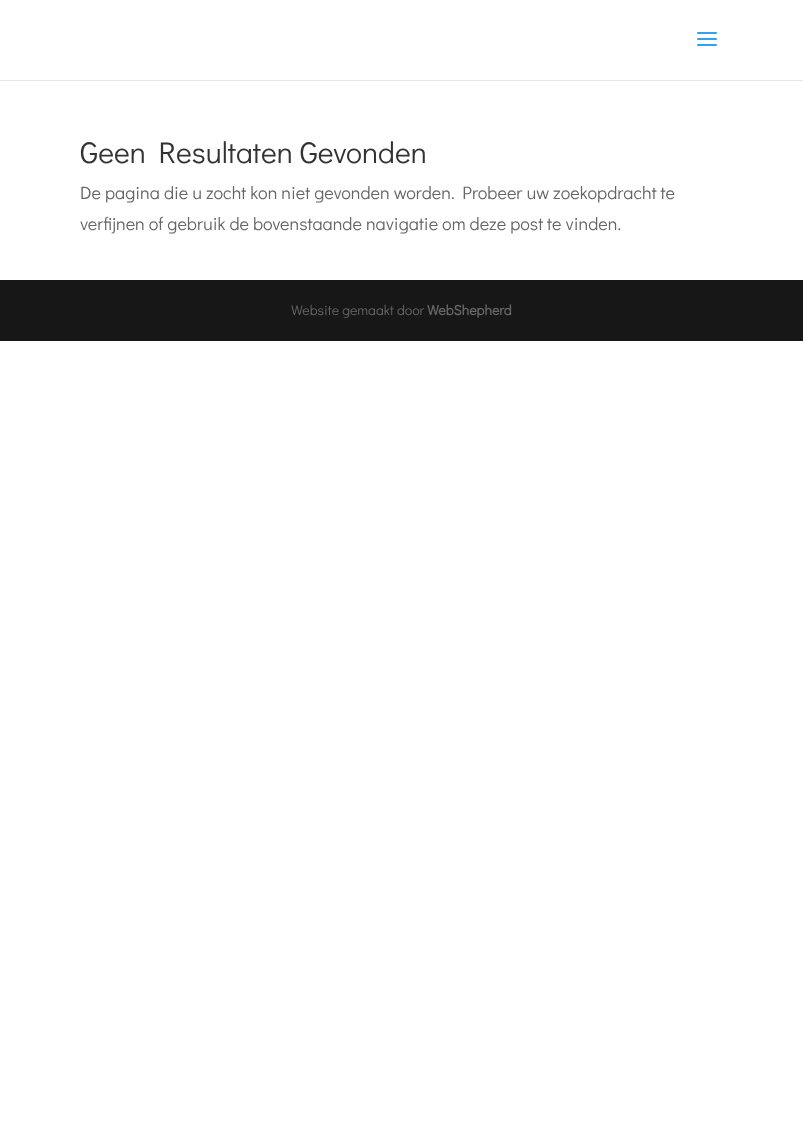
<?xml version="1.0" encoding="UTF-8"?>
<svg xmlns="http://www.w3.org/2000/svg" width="803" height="1130">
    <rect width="100%" height="100%" fill="#FFFFFF"/>
    <rect x="0" y="80" width="803" height="1" fill="#E6E6E6"/>
    <image x="697" y="32" width="20" height="14" href="img_01.png"/>
    <text x="80" y="163" font-family="Didact Gothic" font-size="30" fill="#333333">Geen Resultaten Gevonden</text>
    <text font-family="Didact Gothic" font-size="18" fill="#666666">
        <tspan x="80" y="199">De pagina die u zocht kon niet gevonden worden. Probeer uw zoekopdracht te</tspan>
        <tspan x="80" y="230">verfijnen of gebruik de bovenstaande navigatie om deze post te vinden.</tspan>
    </text>
    <rect x="0" y="280" width="803" height="61" fill="#171717"/>
    <text x="291" y="315" font-family="Didact Gothic" font-size="14" fill="#666666">Website gemaakt door</text>
    <text x="427" y="315" font-family="Didact Gothic" font-size="14" font-weight="700" fill="#666666">WebShepherd</text>
</svg>
